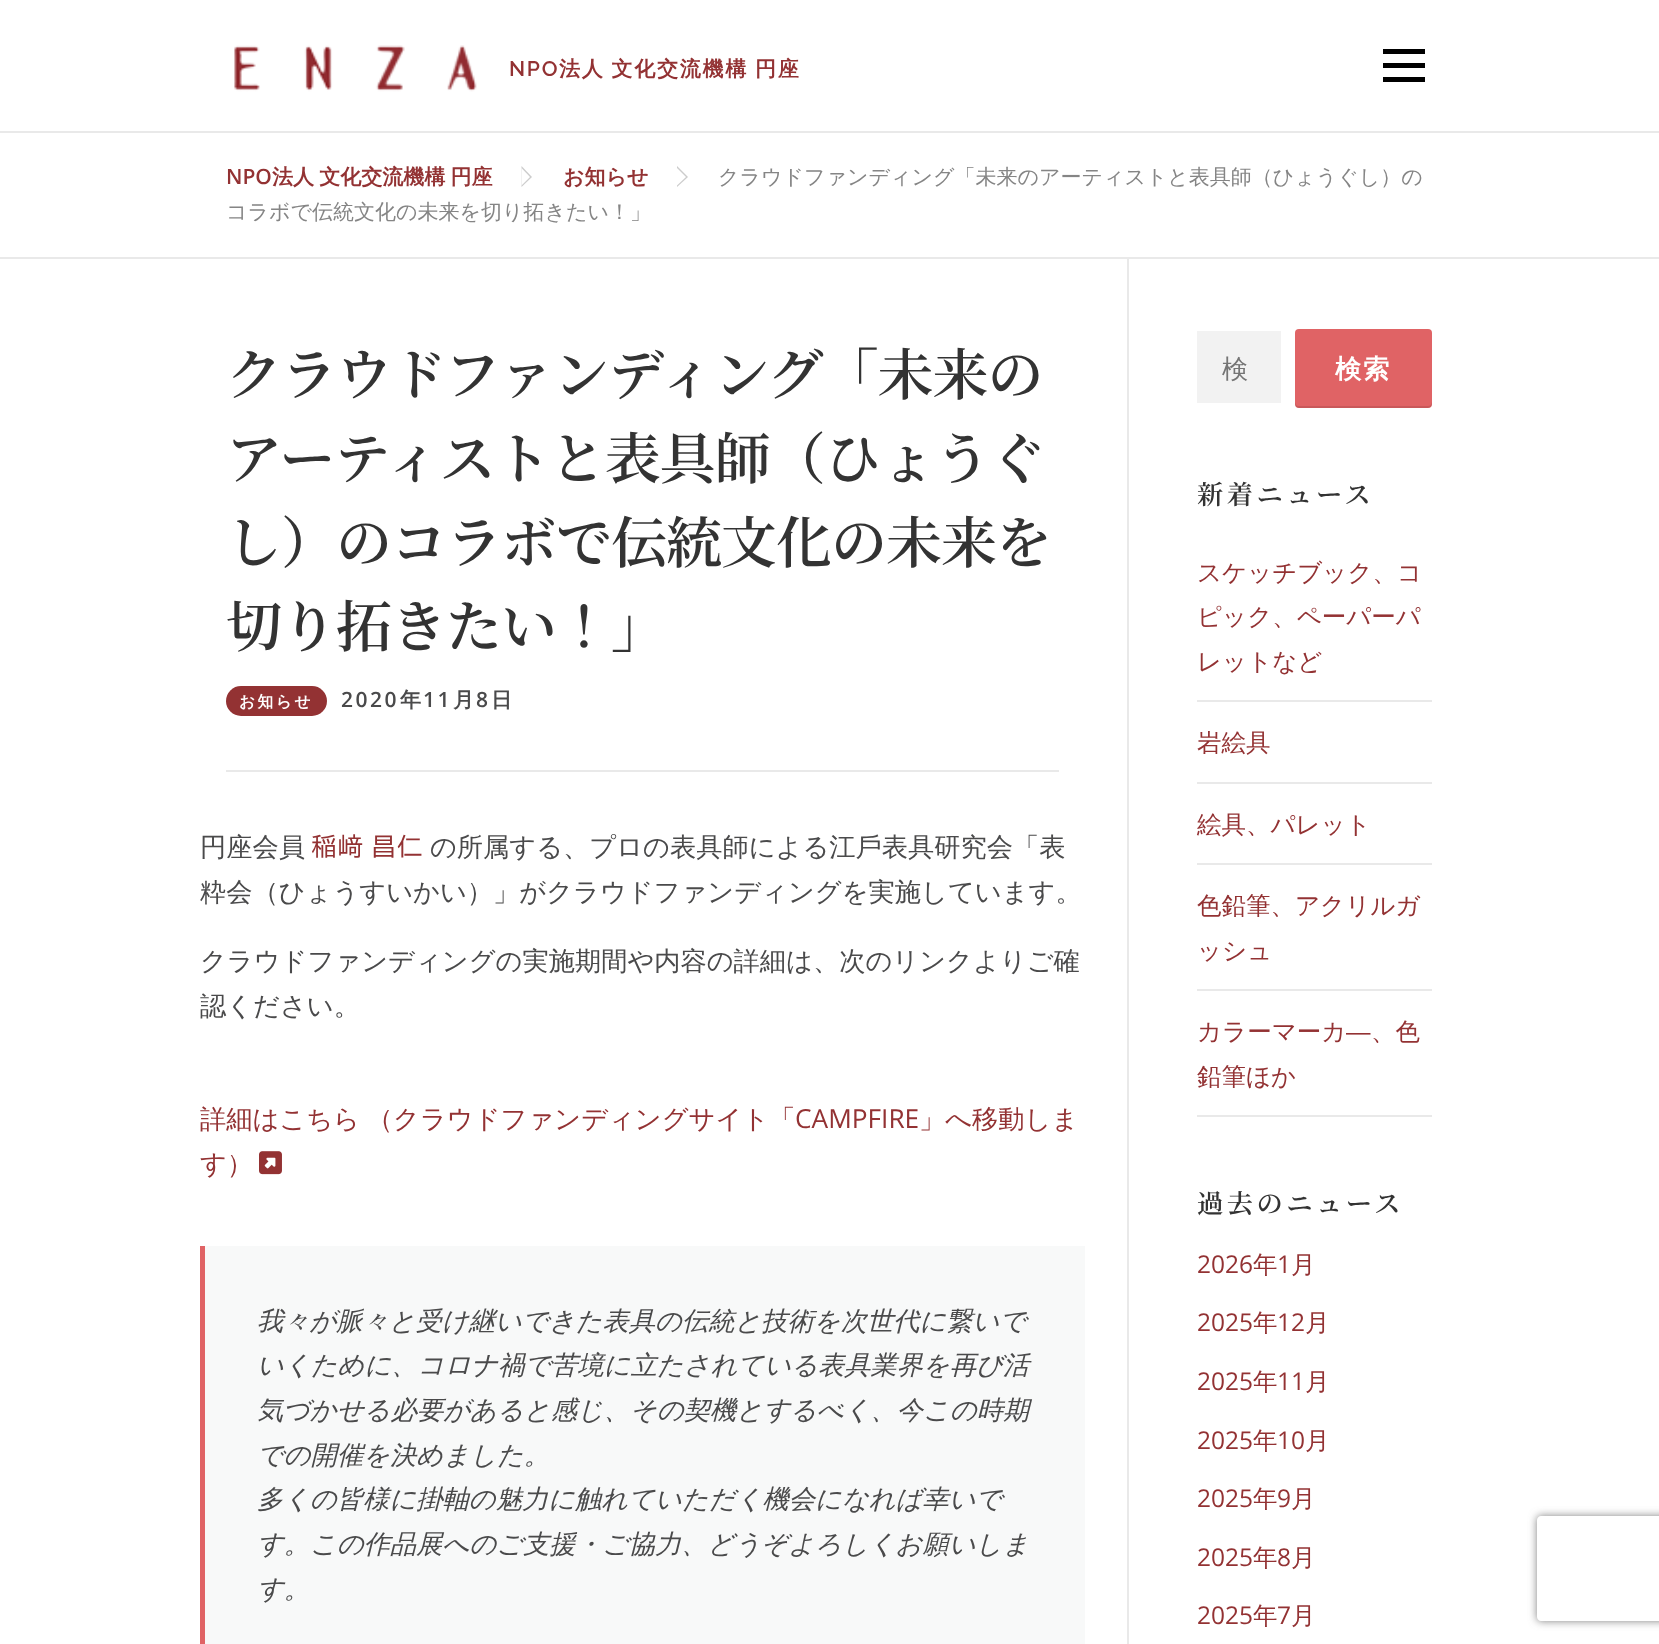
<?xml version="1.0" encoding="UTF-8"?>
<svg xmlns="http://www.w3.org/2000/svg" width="1659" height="1644">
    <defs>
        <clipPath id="clip1"><path d="M 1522 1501 H 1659 V 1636 H 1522 Z M 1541 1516 H 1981 C 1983 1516 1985 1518 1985 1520 V 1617 C 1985 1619 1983 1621 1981 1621 H 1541 C 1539 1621 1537 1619 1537 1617 V 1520 C 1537 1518 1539 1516 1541 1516 Z" clip-rule="evenodd"/></clipPath>
        <filter id="blur1" x="-50%" y="-200%" width="200%" height="500%"><feGaussianBlur stdDeviation="4.5"/></filter>
    </defs>
    <rect width="100%" height="100%" fill="#FFFFFF"/>
    <image x="234" y="45" width="243" height="47" href="img_01.png"/>
    <text x="509" y="76" font-family="Raleway" font-size="21" font-weight="600" letter-spacing="1.75" fill="#933233">NPO</text>
    <text x="559" y="76" word-spacing="-1" font-family="WenQuanYi Zen Hei" font-size="21" font-weight="700" letter-spacing="1.75" fill="#933233">法人 文化交流機構 円座</text>
    <rect x="1383" y="63" width="42" height="5" fill="#000000"/>
    <rect x="1383" y="49" width="42" height="5" fill="#000000"/>
    <rect x="1383" y="77" width="42" height="5" fill="#000000"/>
    <rect x="0" y="131" width="1659" height="2" fill="#E9E9E9"/>
    <rect x="0" y="257" width="1659" height="2" fill="#E9E9E9"/>
    <text x="226" y="184" font-family="Open Sans" font-size="21" font-weight="600" fill="#933233">NPO</text>
    <text x="272" y="184" word-spacing="-1" font-family="WenQuanYi Zen Hei" font-size="21" font-weight="700" fill="#933233">法人 文化交流機構 円座</text>
    <path d="M 521.5 187 V 166 L 532 177 Z" fill="#CCCCCC"/>
    <path d="M 521.5 185.5 V 168 L 530 177 Z" fill="#FFFFFF"/>
    <text x="563" y="184" font-family="WenQuanYi Zen Hei" font-size="21" font-weight="700" fill="#933233">お知らせ</text>
    <path d="M 677 187 V 166 L 688 177 Z" fill="#CCCCCC"/>
    <path d="M 677 185.5 V 168 L 686 177 Z" fill="#FFFFFF"/>
    <text x="718" y="184" font-family="WenQuanYi Zen Hei" font-size="21" font-weight="500" fill="#858585">クラウドファンディング「未来のアーティストと表具師（ひょうぐし）の</text>
    <text x="226" y="219" font-family="WenQuanYi Zen Hei" font-size="21" font-weight="500" fill="#858585">コラボで伝統文化の未来を切り拓きたい！」</text>
    <rect x="1127" y="259" width="2" height="1385" fill="#E9E9E9"/>
    <text font-family="Noto Serif JP" font-size="56" font-weight="600" letter-spacing="-1" fill="#333333">
        <tspan x="226" y="395">クラウドファンディング「未来の</tspan>
        <tspan x="226" y="479">アーティストと表具師（ひょうぐ</tspan>
        <tspan x="226" y="563">し）のコラボで伝統文化の未来を</tspan>
        <tspan x="226" y="647">切り拓きたい！」</tspan>
    </text>
    <rect x="226" y="770" width="833" height="2" fill="#E9E9E9"/>
    <rect x="226" y="686" width="101" height="30" rx="15" fill="#933233"/>
    <text x="239" y="707" font-family="WenQuanYi Zen Hei" font-size="15.75" font-weight="700" letter-spacing="2.5" fill="#FFFFFF">お知らせ</text>
    <text x="341" y="707" font-family="Open Sans" font-size="21" font-weight="600" letter-spacing="2.5" fill="#4A4A4B">2020</text>
    <text x="400" y="707" font-family="WenQuanYi Zen Hei" font-size="21" font-weight="700" letter-spacing="2.5" fill="#4A4A4B">年</text>
    <text x="423" y="707" font-family="Open Sans" font-size="21" font-weight="600" letter-spacing="2.5" fill="#4A4A4B">11</text>
    <text x="453" y="707" font-family="WenQuanYi Zen Hei" font-size="21" font-weight="700" letter-spacing="2.5" fill="#4A4A4B">月</text>
    <text x="476" y="707" font-family="Open Sans" font-size="21" font-weight="600" letter-spacing="2.5" fill="#4A4A4B">8</text>
    <text x="491" y="707" font-family="WenQuanYi Zen Hei" font-size="21" font-weight="700" letter-spacing="2.5" fill="#4A4A4B">日</text>
    <text x="200" y="856" font-family="WenQuanYi Zen Hei" font-size="26.25" font-weight="500" fill="#4A4A4B">円座会員</text>
    <text x="311" y="856" font-family="IPAPGothic" font-size="26.25" fill="#933233">稲﨑 昌仁</text>
    <text x="430" y="856" font-family="WenQuanYi Zen Hei" font-size="26.25" font-weight="500" fill="#4A4A4B">の所属する、プロの表具師による江⼾表具研究会「表</text>
    <text x="200" y="901" font-family="WenQuanYi Zen Hei" font-size="26.25" font-weight="500" fill="#4A4A4B">粋会（ひょうすいかい）」がクラウドファンディングを実施しています。</text>
    <text font-family="WenQuanYi Zen Hei" font-size="26.25" font-weight="500" fill="#4A4A4B">
        <tspan x="200" y="970">クラウドファンディングの実施期間や内容の詳細は、次のリンクよりご確</tspan>
        <tspan x="200" y="1015">認ください。</tspan>
    </text>
    <text x="200" y="1128" word-spacing="-1" font-family="WenQuanYi Zen Hei" font-size="26.25" font-weight="500" fill="#933233">詳細はこちら （クラウドファンディングサイト「</text>
    <text x="795" y="1128" font-family="Open Sans" font-size="26.25" fill="#933233">CAMPFIRE</text>
    <text x="919" y="1128" font-family="WenQuanYi Zen Hei" font-size="26.25" font-weight="500" fill="#933233">」へ移動しま</text>
    <text x="200" y="1173" font-family="WenQuanYi Zen Hei" font-size="26.25" font-weight="500" fill="#933233">す）</text>
    <image x="259" y="1151" width="23" height="24" href="img_02.png"/>
    <rect x="205" y="1246" width="880" height="398" fill="#F8F9F9"/>
    <rect x="200" y="1246" width="5" height="398" fill="#E06365"/>
    <text font-family="WenQuanYi Zen Hei" font-size="26.25" font-weight="500" font-style="italic" fill="#4A4A4B">
        <tspan x="257" y="1330">我々が脈々と受け継いできた表具の伝統と技術を次世代に繋いで</tspan>
        <tspan x="257" y="1374">いくために、コロナ禍で苦境に立たされている表具業界を再び活</tspan>
        <tspan x="257" y="1419">気づかせる必要があると感じ、その契機とするべく、今この時期</tspan>
        <tspan x="257" y="1464">での開催を決めました。</tspan>
        <tspan x="257" y="1508">多くの皆様に掛軸の魅力に触れていただく機会になれば幸いで</tspan>
        <tspan x="257" y="1553">す。この作品展へのご支援・ご協力、どうぞよろしくお願いしま</tspan>
        <tspan x="257" y="1598">す。</tspan>
    </text>
    <rect x="1197" y="331" width="84" height="72" fill="#F2F2F2"/>
    <text x="1222" y="378" font-family="WenQuanYi Zen Hei" font-size="26.25" font-weight="500" fill="#757575">検</text>
    <rect x="1295" y="329" width="137" height="79" rx="4" fill="#E06365"/>
    <path d="M 1295 402 V 404 C 1295 406 1297 408 1299 408 H 1428 C 1430 408 1432 406 1432 404 V 402 C 1432 404 1430 406 1428 406 H 1298 C 1297 406 1295 404 1295 402 Z" fill="#000000" fill-opacity="0.1"/>
    <text x="1335" y="378" font-family="WenQuanYi Zen Hei" font-size="26.25" font-weight="700" letter-spacing="1.75" fill="#FFFFFF">検索</text>
    <text x="1197" y="504" font-family="Noto Serif JP" font-size="26.25" font-weight="600" letter-spacing="3.5" fill="#333333">新着ニュース</text>
    <rect x="1197" y="700" width="235" height="2" fill="#E9E9E9"/>
    <text font-family="WenQuanYi Zen Hei" font-size="24.5" font-weight="500" fill="#933233">
        <tspan x="1197" y="581">スケッチブック、コ</tspan>
        <tspan x="1197" y="625">ピック、ペーパーパ</tspan>
        <tspan x="1197" y="670">レットなど</tspan>
    </text>
    <rect x="1197" y="782" width="235" height="2" fill="#E9E9E9"/>
    <text x="1197" y="751" font-family="WenQuanYi Zen Hei" font-size="24.5" font-weight="500" fill="#933233">岩絵具</text>
    <rect x="1197" y="863" width="235" height="2" fill="#E9E9E9"/>
    <text x="1197" y="833" font-family="WenQuanYi Zen Hei" font-size="24.5" font-weight="500" fill="#933233">絵具、パレット</text>
    <rect x="1197" y="989" width="235" height="2" fill="#E9E9E9"/>
    <text font-family="WenQuanYi Zen Hei" font-size="24.5" font-weight="500" fill="#933233">
        <tspan x="1197" y="914">色鉛筆、アクリルガ</tspan>
        <tspan x="1197" y="959">ッシュ</tspan>
    </text>
    <rect x="1197" y="1115" width="235" height="2" fill="#E9E9E9"/>
    <text x="1197" y="1040" font-family="WenQuanYi Zen Hei" font-size="24.5" font-weight="500" fill="#933233">カラーマーカ</text>
    <text x="1346" y="1040" font-family="Liberation Sans" font-size="24.5" fill="#933233">―</text>
    <text x="1371" y="1040" font-family="WenQuanYi Zen Hei" font-size="24.5" font-weight="500" fill="#933233">、色</text>
    <text x="1197" y="1085" font-family="WenQuanYi Zen Hei" font-size="24.5" font-weight="500" fill="#933233">鉛筆ほか</text>
    <text x="1197" y="1213" font-family="Noto Serif JP" font-size="26.25" font-weight="600" letter-spacing="3.5" fill="#333333">過去のニュース</text>
    <text x="1197" y="1273" font-family="Open Sans" font-size="24.5" fill="#933233">2026</text>
    <text x="1253" y="1273" font-family="WenQuanYi Zen Hei" font-size="24.5" font-weight="500" fill="#933233">年</text>
    <text x="1277" y="1273" font-family="Open Sans" font-size="24.5" fill="#933233">1</text>
    <text x="1291" y="1273" font-family="WenQuanYi Zen Hei" font-size="24.5" font-weight="500" fill="#933233">月</text>
    <text x="1197" y="1331" font-family="Open Sans" font-size="24.5" fill="#933233">2025</text>
    <text x="1253" y="1331" font-family="WenQuanYi Zen Hei" font-size="24.5" font-weight="500" fill="#933233">年</text>
    <text x="1277" y="1331" font-family="Open Sans" font-size="24.5" fill="#933233">12</text>
    <text x="1305" y="1331" font-family="WenQuanYi Zen Hei" font-size="24.5" font-weight="500" fill="#933233">月</text>
    <text x="1197" y="1390" font-family="Open Sans" font-size="24.5" fill="#933233">2025</text>
    <text x="1253" y="1390" font-family="WenQuanYi Zen Hei" font-size="24.5" font-weight="500" fill="#933233">年</text>
    <text x="1277" y="1390" font-family="Open Sans" font-size="24.5" fill="#933233">11</text>
    <text x="1305" y="1390" font-family="WenQuanYi Zen Hei" font-size="24.5" font-weight="500" fill="#933233">月</text>
    <text x="1197" y="1449" font-family="Open Sans" font-size="24.5" fill="#933233">2025</text>
    <text x="1253" y="1449" font-family="WenQuanYi Zen Hei" font-size="24.5" font-weight="500" fill="#933233">年</text>
    <text x="1277" y="1449" font-family="Open Sans" font-size="24.5" fill="#933233">10</text>
    <text x="1305" y="1449" font-family="WenQuanYi Zen Hei" font-size="24.5" font-weight="500" fill="#933233">月</text>
    <text x="1197" y="1507" font-family="Open Sans" font-size="24.5" fill="#933233">2025</text>
    <text x="1253" y="1507" font-family="WenQuanYi Zen Hei" font-size="24.5" font-weight="500" fill="#933233">年</text>
    <text x="1277" y="1507" font-family="Open Sans" font-size="24.5" fill="#933233">9</text>
    <text x="1291" y="1507" font-family="WenQuanYi Zen Hei" font-size="24.5" font-weight="500" fill="#933233">月</text>
    <text x="1197" y="1566" font-family="Open Sans" font-size="24.5" fill="#933233">2025</text>
    <text x="1253" y="1566" font-family="WenQuanYi Zen Hei" font-size="24.5" font-weight="500" fill="#933233">年</text>
    <text x="1277" y="1566" font-family="Open Sans" font-size="24.5" fill="#933233">8</text>
    <text x="1291" y="1566" font-family="WenQuanYi Zen Hei" font-size="24.5" font-weight="500" fill="#933233">月</text>
    <text x="1197" y="1624" font-family="Open Sans" font-size="24.5" fill="#933233">2025</text>
    <text x="1253" y="1624" font-family="WenQuanYi Zen Hei" font-size="24.5" font-weight="500" fill="#933233">年</text>
    <text x="1277" y="1624" font-family="Open Sans" font-size="24.5" fill="#933233">7</text>
    <text x="1291" y="1624" font-family="WenQuanYi Zen Hei" font-size="24.5" font-weight="500" fill="#933233">月</text>
    <g clip-path="url(#clip1)">
        <rect x="1537" y="1516" width="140" height="105" rx="4" fill="#808080" filter="url(#blur1)"/>
    </g>
</svg>
